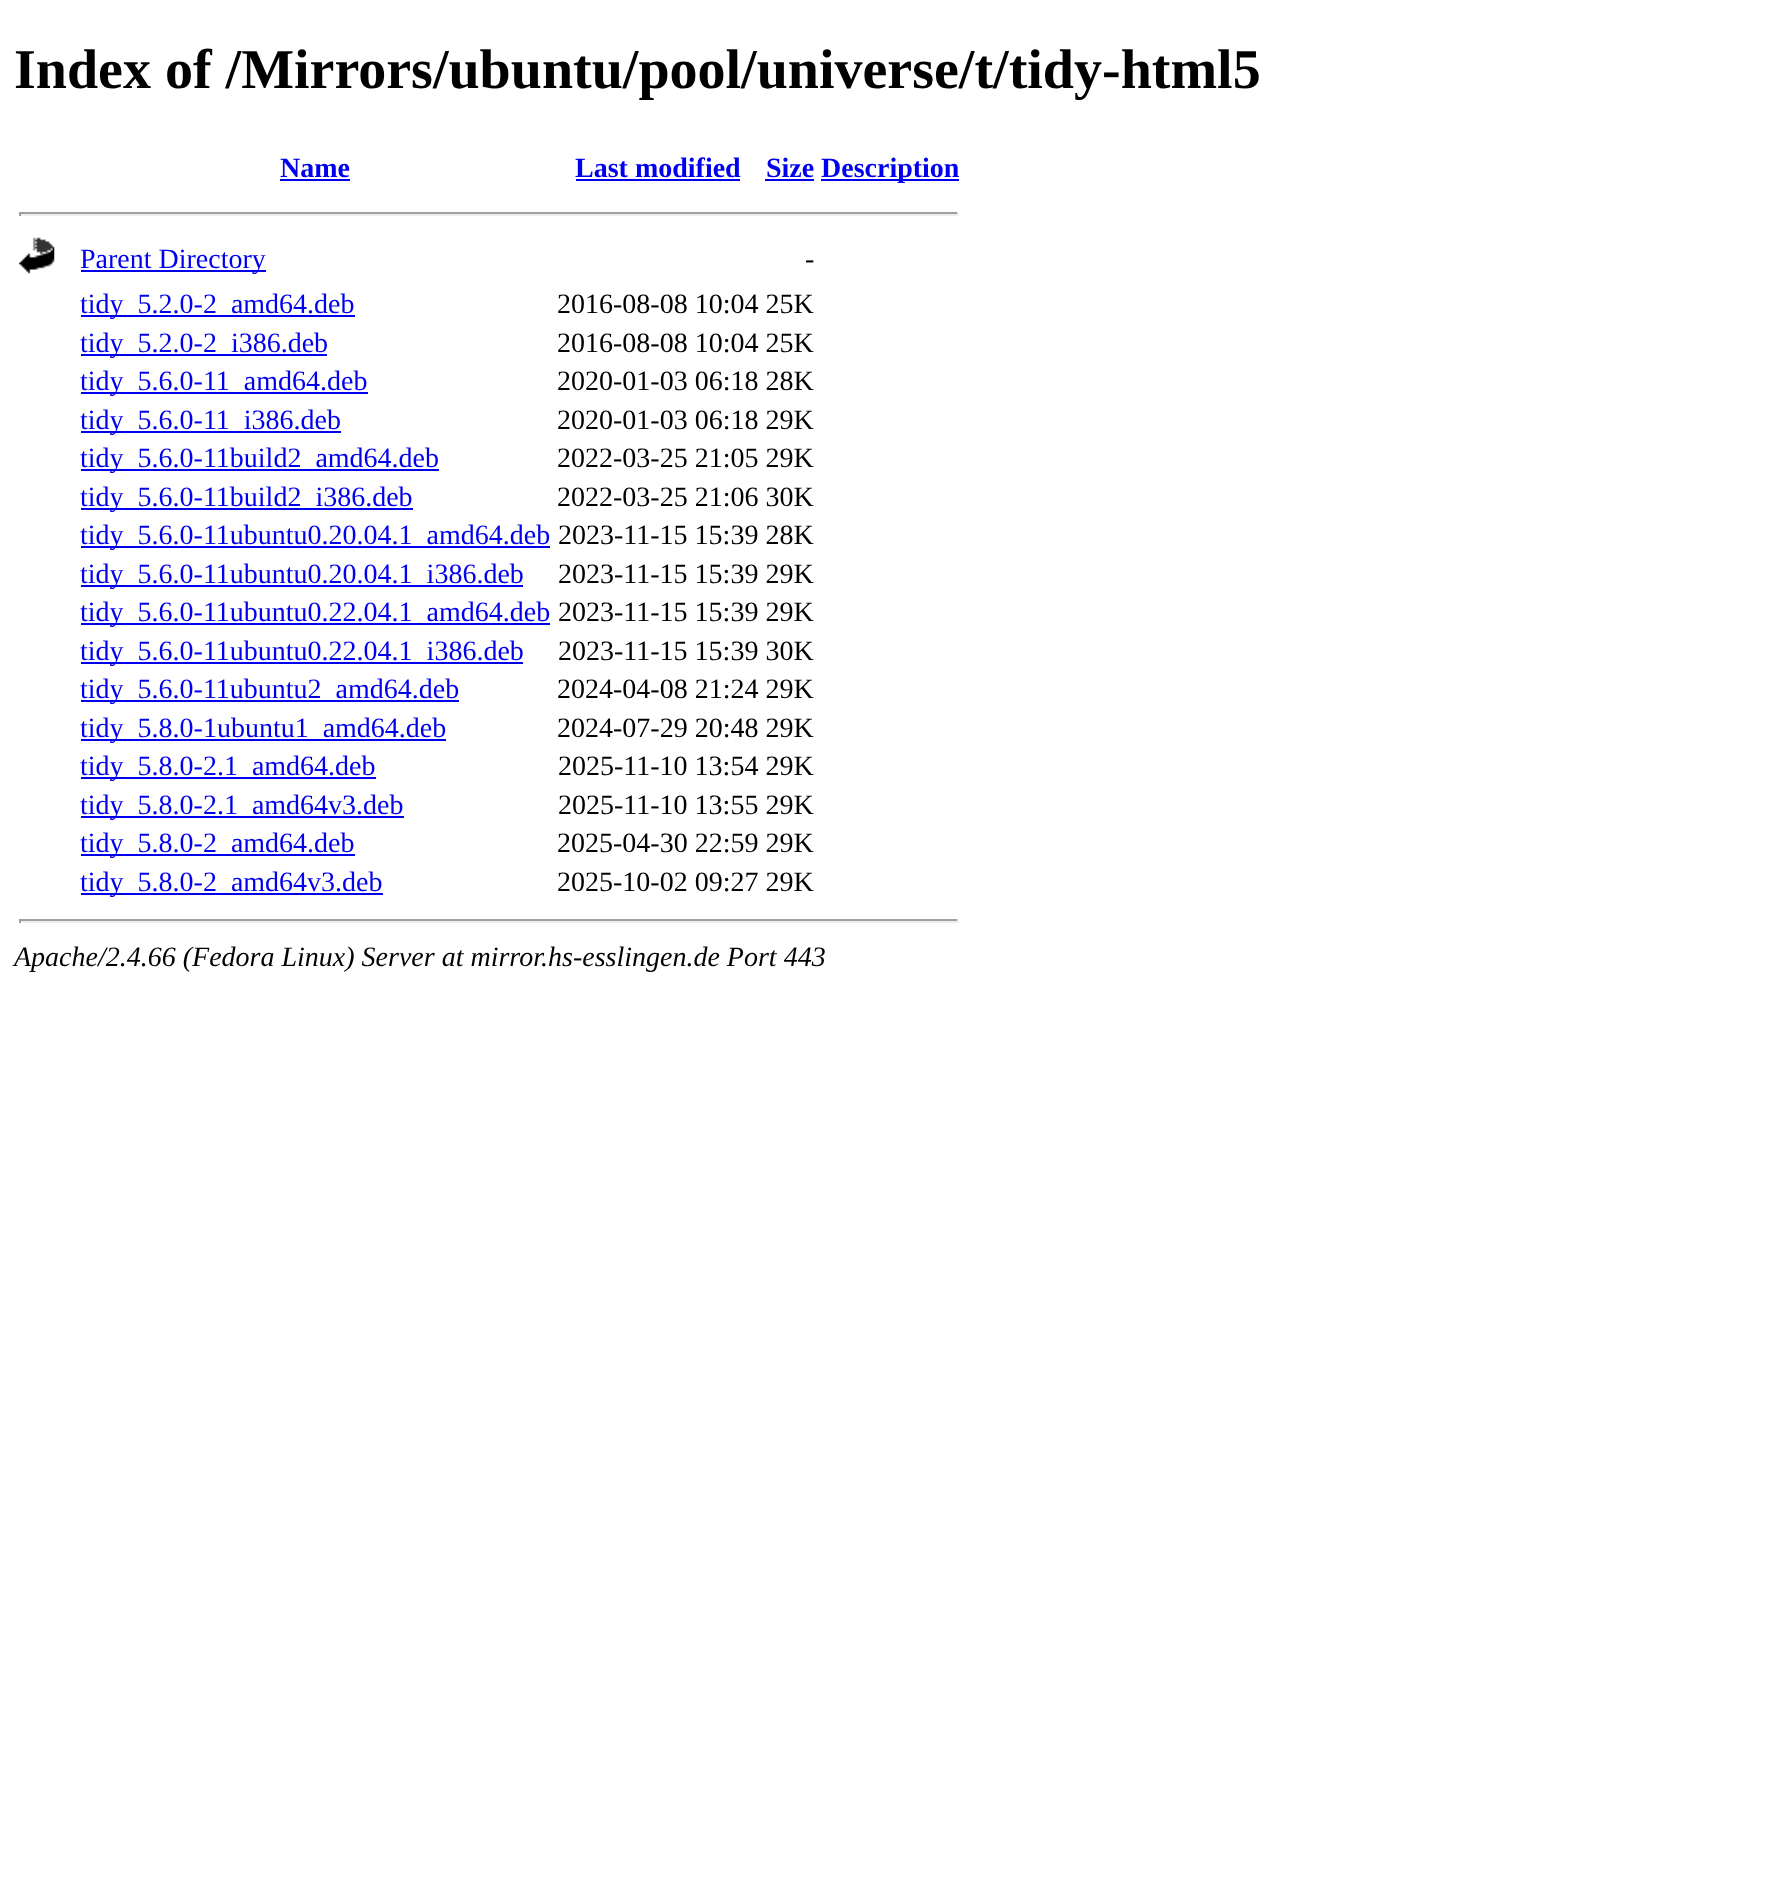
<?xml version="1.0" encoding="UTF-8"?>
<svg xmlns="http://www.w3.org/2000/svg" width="1786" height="1895">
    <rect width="100%" height="100%" fill="#FFFFFF"/>
    <text x="14" y="88" font-family="Liberation Serif" font-size="56" font-weight="700" fill="#000000">Index of /Mirrors/ubuntu/pool/universe/t/tidy-html5</text>
    <text x="280" y="177" font-family="Liberation Serif" font-size="28" font-weight="700" fill="#0000EE">Name</text>
    <rect x="280" y="179" width="70" height="2" fill="#0000EE"/>
    <text x="575" y="177" font-family="Liberation Serif" font-size="28" font-weight="700" fill="#0000EE">Last modified</text>
    <rect x="576" y="179" width="164" height="2" fill="#0000EE"/>
    <text x="766" y="177" font-family="Liberation Serif" font-size="28" font-weight="700" fill="#0000EE">Size</text>
    <rect x="765" y="179" width="49" height="2" fill="#0000EE"/>
    <rect x="821" y="179" width="138" height="2" fill="#0000EE"/>
    <text x="821" y="177" font-family="Liberation Serif" font-size="28" font-weight="700" fill="#0000EE">Description</text>
    <rect x="19" y="212" width="940" height="2" fill="#9F9F9F"/>
    <rect x="957" y="212" width="2" height="4" fill="#EEEEEE"/>
    <rect x="19" y="214" width="940" height="2" fill="#EEEEEE"/>
    <rect x="19" y="212" width="2" height="4" fill="#9F9F9F"/>
    <image x="19" y="237" width="36" height="37" href="img_01.png"/>
    <rect x="81" y="270" width="185" height="2" fill="#0000EE"/>
    <text x="80" y="268" font-family="Liberation Serif" font-size="28" fill="#0000EE">Parent Directory</text>
    <text x="805" y="268" font-family="Liberation Serif" font-size="28" fill="#000000">-</text>
    <rect x="81" y="315" width="274" height="2" fill="#0000EE"/>
    <text x="80" y="313" font-family="Liberation Serif" font-size="28" fill="#0000EE">tidy_5.2.0-2_amd64.deb</text>
    <text x="557" y="313" font-family="Liberation Serif" font-size="28" fill="#000000">2016-08-08 10:04 25K</text>
    <rect x="81" y="354" width="246" height="2" fill="#0000EE"/>
    <text x="80" y="352" font-family="Liberation Serif" font-size="28" fill="#0000EE">tidy_5.2.0-2_i386.deb</text>
    <text x="557" y="352" font-family="Liberation Serif" font-size="28" fill="#000000">2016-08-08 10:04 25K</text>
    <rect x="81" y="392" width="287" height="2" fill="#0000EE"/>
    <text x="80" y="390" font-family="Liberation Serif" font-size="28" fill="#0000EE">tidy_5.6.0-11_amd64.deb</text>
    <text x="557" y="390" font-family="Liberation Serif" font-size="28" fill="#000000">2020-01-03 06:18 28K</text>
    <rect x="81" y="431" width="260" height="2" fill="#0000EE"/>
    <text x="80" y="429" font-family="Liberation Serif" font-size="28" fill="#0000EE">tidy_5.6.0-11_i386.deb</text>
    <text x="557" y="429" font-family="Liberation Serif" font-size="28" fill="#000000">2020-01-03 06:18 29K</text>
    <rect x="81" y="469" width="358" height="2" fill="#0000EE"/>
    <text x="80" y="467" font-family="Liberation Serif" font-size="28" fill="#0000EE">tidy_5.6.0-11build2_amd64.deb</text>
    <text x="557" y="467" font-family="Liberation Serif" font-size="28" fill="#000000">2022-03-25 21:05 29K</text>
    <rect x="81" y="508" width="332" height="2" fill="#0000EE"/>
    <text x="80" y="506" font-family="Liberation Serif" font-size="28" fill="#0000EE">tidy_5.6.0-11build2_i386.deb</text>
    <text x="557" y="506" font-family="Liberation Serif" font-size="28" fill="#000000">2022-03-25 21:06 30K</text>
    <rect x="81" y="546" width="469" height="2" fill="#0000EE"/>
    <text x="80" y="544" font-family="Liberation Serif" font-size="28" fill="#0000EE">tidy_5.6.0-11ubuntu0.20.04.1_amd64.deb</text>
    <text x="558" y="544" font-family="Liberation Serif" font-size="28" fill="#000000">2023-11-15 15:39 28K</text>
    <rect x="81" y="585" width="442" height="2" fill="#0000EE"/>
    <text x="80" y="583" font-family="Liberation Serif" font-size="28" fill="#0000EE">tidy_5.6.0-11ubuntu0.20.04.1_i386.deb</text>
    <text x="558" y="583" font-family="Liberation Serif" font-size="28" fill="#000000">2023-11-15 15:39 29K</text>
    <rect x="81" y="623" width="469" height="2" fill="#0000EE"/>
    <text x="80" y="621" font-family="Liberation Serif" font-size="28" fill="#0000EE">tidy_5.6.0-11ubuntu0.22.04.1_amd64.deb</text>
    <text x="558" y="621" font-family="Liberation Serif" font-size="28" fill="#000000">2023-11-15 15:39 29K</text>
    <rect x="81" y="662" width="442" height="2" fill="#0000EE"/>
    <text x="80" y="660" font-family="Liberation Serif" font-size="28" fill="#0000EE">tidy_5.6.0-11ubuntu0.22.04.1_i386.deb</text>
    <text x="558" y="660" font-family="Liberation Serif" font-size="28" fill="#000000">2023-11-15 15:39 30K</text>
    <rect x="81" y="700" width="378" height="2" fill="#0000EE"/>
    <text x="80" y="698" font-family="Liberation Serif" font-size="28" fill="#0000EE">tidy_5.6.0-11ubuntu2_amd64.deb</text>
    <text x="557" y="698" font-family="Liberation Serif" font-size="28" fill="#000000">2024-04-08 21:24 29K</text>
    <rect x="81" y="739" width="365" height="2" fill="#0000EE"/>
    <text x="80" y="737" font-family="Liberation Serif" font-size="28" fill="#0000EE">tidy_5.8.0-1ubuntu1_amd64.deb</text>
    <text x="557" y="737" font-family="Liberation Serif" font-size="28" fill="#000000">2024-07-29 20:48 29K</text>
    <rect x="81" y="777" width="295" height="2" fill="#0000EE"/>
    <text x="80" y="775" font-family="Liberation Serif" font-size="28" fill="#0000EE">tidy_5.8.0-2.1_amd64.deb</text>
    <text x="558" y="775" font-family="Liberation Serif" font-size="28" fill="#000000">2025-11-10 13:54 29K</text>
    <rect x="81" y="816" width="323" height="2" fill="#0000EE"/>
    <text x="80" y="814" font-family="Liberation Serif" font-size="28" fill="#0000EE">tidy_5.8.0-2.1_amd64v3.deb</text>
    <text x="558" y="814" font-family="Liberation Serif" font-size="28" fill="#000000">2025-11-10 13:55 29K</text>
    <rect x="81" y="854" width="274" height="2" fill="#0000EE"/>
    <text x="80" y="852" font-family="Liberation Serif" font-size="28" fill="#0000EE">tidy_5.8.0-2_amd64.deb</text>
    <text x="557" y="852" font-family="Liberation Serif" font-size="28" fill="#000000">2025-04-30 22:59 29K</text>
    <rect x="81" y="893" width="302" height="2" fill="#0000EE"/>
    <text x="80" y="891" font-family="Liberation Serif" font-size="28" fill="#0000EE">tidy_5.8.0-2_amd64v3.deb</text>
    <text x="557" y="891" font-family="Liberation Serif" font-size="28" fill="#000000">2025-10-02 09:27 29K</text>
    <rect x="19" y="919" width="940" height="2" fill="#9F9F9F"/>
    <rect x="957" y="919" width="2" height="4" fill="#EEEEEE"/>
    <rect x="19" y="921" width="940" height="2" fill="#EEEEEE"/>
    <rect x="19" y="919" width="2" height="4" fill="#9F9F9F"/>
    <text x="14" y="966" font-family="Liberation Serif" font-size="28" font-style="italic" fill="#000000">Apache/2.4.66 (Fedora Linux) Server at mirror.hs-esslingen.de Port 443</text>
</svg>
